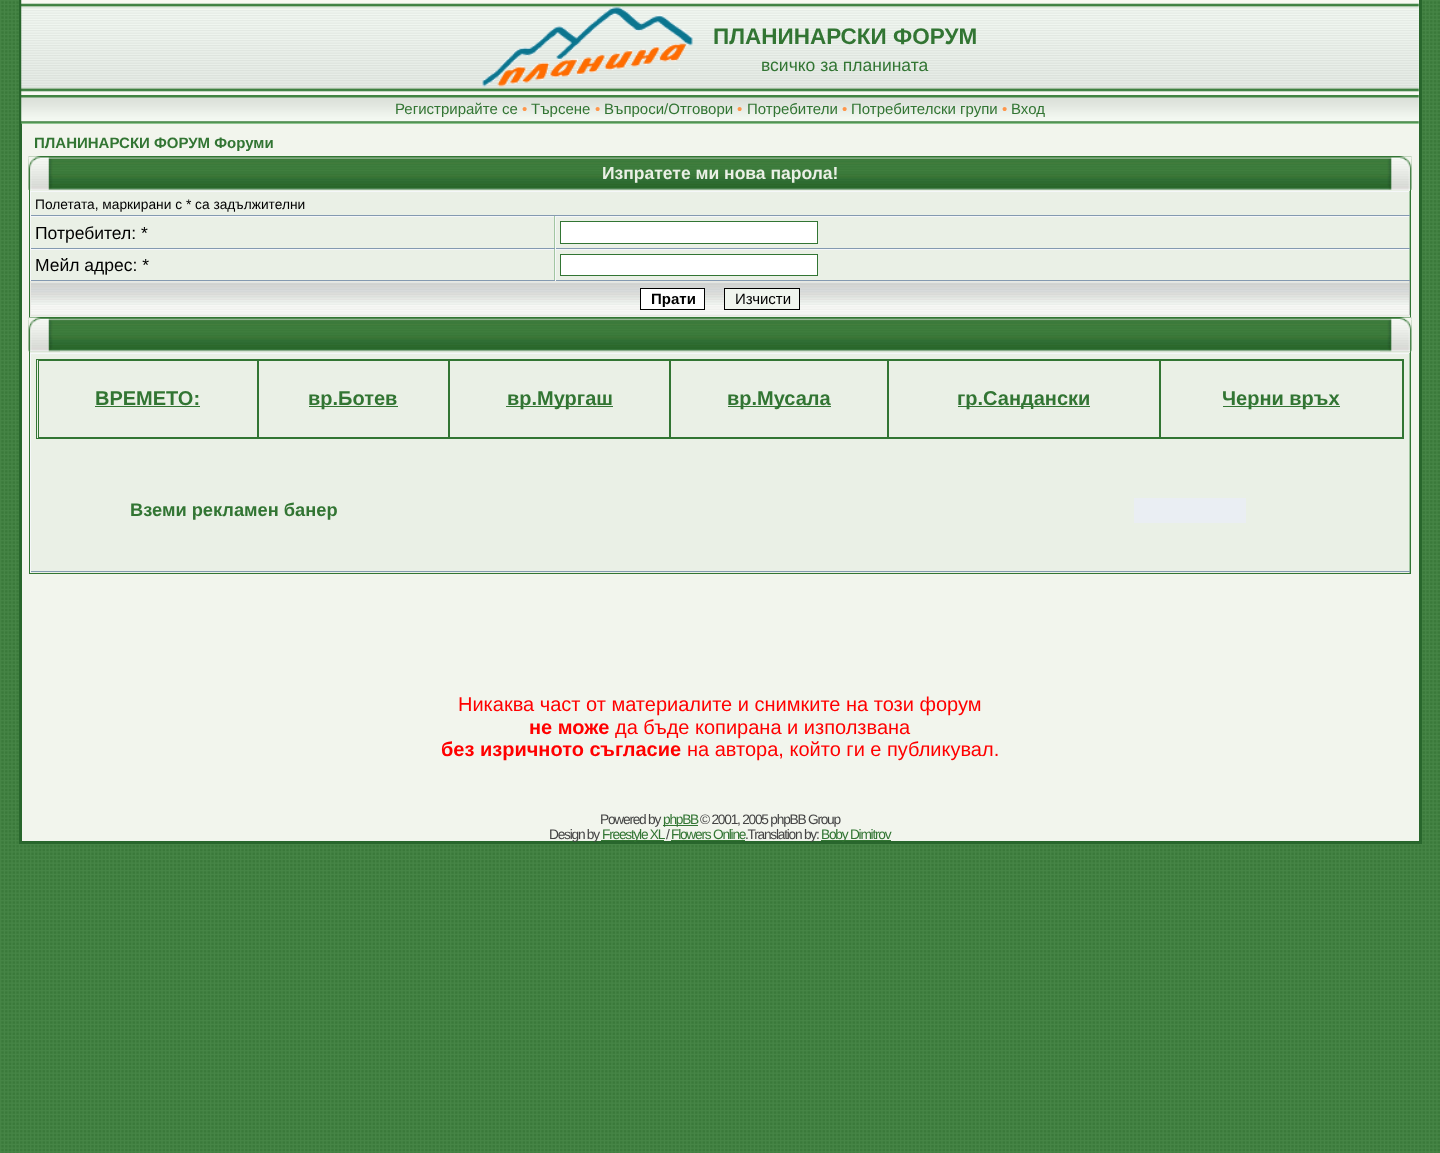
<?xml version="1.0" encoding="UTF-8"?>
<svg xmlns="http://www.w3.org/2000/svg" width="1440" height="1153">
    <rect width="100%" height="100%" fill="#FFFFFF"/>
    <image x="0" y="844" width="1440" height="309" href="img_01.png"/>
    <image x="0" y="0" width="1440" height="844" href="img_02.png"/>
    <rect x="22" y="0" width="1397" height="841" fill="#F2F5ED"/>
    <rect x="1419" y="0" width="3" height="844" fill="#28662C"/>
    <rect x="19" y="841" width="1402" height="3" fill="#28662C"/>
    <rect x="19" y="0" width="3" height="844" fill="#28662C"/>
    <image x="21" y="0" width="1398" height="95" href="img_03.png"/>
    <image x="482" y="7" width="211" height="80" href="img_04.png"/>
    <text x="713" y="44" font-family="Liberation Sans" font-size="22.5" font-weight="700" fill="#327533">ПЛАНИНАРСКИ ФОРУМ</text>
    <text x="761" y="71" font-family="Liberation Sans" font-size="17.5" fill="#327533">всичко за планината</text>
    <image x="21" y="95" width="1398" height="29" href="img_05.png"/>
    <text x="395" y="114" font-family="Liberation Sans" font-size="15" fill="#327533">Регистрирайте се</text>
    <text x="522" y="114" font-family="Liberation Sans" font-size="15" fill="#FF964A">•</text>
    <text x="531" y="114" font-family="Liberation Sans" font-size="15" fill="#327533">Търсене</text>
    <text x="595" y="114" font-family="Liberation Sans" font-size="15" fill="#FF964A">•</text>
    <text x="604" y="114" font-family="Liberation Sans" font-size="15" fill="#327533">Въпроси/Отговори</text>
    <text x="737" y="114" font-family="Liberation Sans" font-size="15" fill="#FF964A">•</text>
    <text x="747" y="114" font-family="Liberation Sans" font-size="15" fill="#327533">Потребители</text>
    <text x="842" y="114" font-family="Liberation Sans" font-size="15" fill="#FF964A">•</text>
    <text x="851" y="114" font-family="Liberation Sans" font-size="15" fill="#327533">Потребителски групи</text>
    <text x="1002" y="114" font-family="Liberation Sans" font-size="15" fill="#FF964A">•</text>
    <text x="1011" y="114" font-family="Liberation Sans" font-size="15" fill="#327533">Вход</text>
    <text x="34" y="148" font-family="Liberation Sans" font-size="15" font-weight="700" fill="#327533">ПЛАНИНАРСКИ ФОРУМ Форуми</text>
    <rect x="30" y="190" width="1380" height="127" fill="#EAF0E6"/>
    <rect x="29.5" y="156.5" width="1381" height="161" fill="none" stroke="#327533"/>
    <image x="28" y="156" width="32" height="34" href="img_06.png"/>
    <image x="28" y="156" width="32" height="34" href="img_07.png"/>
    <image x="60" y="157" width="1320" height="33" href="img_08.png"/>
    <text x="602" y="179" font-family="Liberation Sans" font-size="17.5" font-weight="700" fill="#EAF0E6">Изпратете ми нова парола!</text>
    <image x="1380" y="156" width="32" height="34" href="img_09.png"/>
    <image x="1380" y="156" width="32" height="34" href="img_10.png"/>
    <rect x="30" y="191" width="1380" height="1" fill="#F5F7F9"/>
    <rect x="1409" y="191" width="1" height="25" fill="#A2C6A1"/>
    <rect x="30" y="215" width="1380" height="1" fill="#849AB1"/>
    <rect x="30" y="191" width="1" height="25" fill="#F5F7F9"/>
    <text x="35" y="209" font-family="Liberation Sans" font-size="13.75" fill="#000000">Полетата, маркирани с * са задължителни</text>
    <rect x="30" y="216" width="1380" height="1" fill="#F5F7F9"/>
    <rect x="554" y="216" width="1" height="33" fill="#A2C6A1"/>
    <rect x="30" y="248" width="525" height="1" fill="#849AB1"/>
    <rect x="30" y="216" width="1" height="33" fill="#F5F7F9"/>
    <text x="35" y="239" font-family="Liberation Sans" font-size="17.5" fill="#000000">Потребител: *</text>
    <rect x="1409" y="216" width="1" height="33" fill="#A2C6A1"/>
    <rect x="555" y="248" width="855" height="1" fill="#849AB1"/>
    <rect x="555" y="216" width="1" height="33" fill="#F5F7F9"/>
    <rect x="560.5" y="221.5" width="257" height="22" fill="#FFFFFF" stroke="#327533"/>
    <rect x="30" y="249" width="1380" height="1" fill="#F5F7F9"/>
    <rect x="554" y="249" width="1" height="32" fill="#A2C6A1"/>
    <rect x="30" y="280" width="525" height="1" fill="#849AB1"/>
    <rect x="30" y="249" width="1" height="32" fill="#F5F7F9"/>
    <text x="35" y="271" font-family="Liberation Sans" font-size="17.5" fill="#000000">Мейл адрес: *</text>
    <rect x="1409" y="249" width="1" height="32" fill="#A2C6A1"/>
    <rect x="555" y="280" width="855" height="1" fill="#849AB1"/>
    <rect x="555" y="249" width="1" height="32" fill="#F5F7F9"/>
    <rect x="560.5" y="254.5" width="257" height="21" fill="#FFFFFF" stroke="#327533"/>
    <rect x="31" y="282" width="1378" height="1" fill="#F2F6F2"/>
    <image x="31" y="282" width="1378" height="33" href="img_11.png"/>
    <rect x="30" y="281" width="1380" height="1" fill="#E7E8E2"/>
    <rect x="1409" y="281" width="1" height="35" fill="#B8C0B8"/>
    <rect x="30" y="315" width="1380" height="1" fill="#E7E8E2"/>
    <rect x="30" y="281" width="1" height="35" fill="#E7E8E2"/>
    <rect x="640.5" y="288.5" width="64" height="21" fill="#FFFFFF" stroke="#000000"/>
    <text x="651" y="304" font-family="Liberation Sans" font-size="15" font-weight="700" fill="#000000">Прати</text>
    <rect x="724.5" y="288.5" width="75" height="21" fill="#F0F5EE" stroke="#000000"/>
    <text x="735" y="304" font-family="Liberation Sans" font-size="15" fill="#000000">Изчисти</text>
    <rect x="30" y="351" width="1380" height="222" fill="#EAF0E6"/>
    <rect x="29.5" y="318.5" width="1381" height="255" fill="none" stroke="#327533"/>
    <image x="28" y="317" width="32" height="35" href="img_12.png"/>
    <image x="28" y="317" width="32" height="35" href="img_13.png"/>
    <image x="60" y="318" width="1320" height="34" href="img_14.png"/>
    <image x="1380" y="317" width="32" height="35" href="img_15.png"/>
    <image x="1380" y="317" width="32" height="35" href="img_16.png"/>
    <rect x="30" y="353" width="1380" height="1" fill="#F5F7F9"/>
    <rect x="1409" y="353" width="1" height="220" fill="#A2C6A1"/>
    <rect x="30" y="571" width="1380" height="1" fill="#849AB1"/>
    <rect x="30" y="353" width="1" height="220" fill="#F5F7F9"/>
    <rect x="36.5" y="359.5" width="1367" height="79" fill="none" stroke="#327533"/>
    <rect x="38.5" y="360.5" width="219" height="77" fill="none" stroke="#327533"/>
    <text x="95" y="405" font-family="Liberation Sans" font-size="20" font-weight="700" fill="#327533">ВРЕМЕТО:</text>
    <rect x="95" y="406" width="105" height="1" fill="#327533"/>
    <rect x="258.5" y="360.5" width="190" height="77" fill="none" stroke="#327533"/>
    <rect x="309" y="406" width="89" height="1" fill="#327533"/>
    <text x="308" y="405" font-family="Liberation Sans" font-size="20" font-weight="700" fill="#327533">вр.Ботев</text>
    <rect x="449.5" y="360.5" width="220" height="77" fill="none" stroke="#327533"/>
    <rect x="506" y="406" width="107" height="1" fill="#327533"/>
    <text x="507" y="405" font-family="Liberation Sans" font-size="20" font-weight="700" fill="#327533">вр.Мургаш</text>
    <rect x="670.5" y="360.5" width="217" height="77" fill="none" stroke="#327533"/>
    <rect x="728" y="406" width="103" height="1" fill="#327533"/>
    <text x="727" y="405" font-family="Liberation Sans" font-size="20" font-weight="700" fill="#327533">вр.Мусала</text>
    <rect x="888.5" y="360.5" width="271" height="77" fill="none" stroke="#327533"/>
    <rect x="958" y="406" width="132" height="1" fill="#327533"/>
    <text x="957" y="405" font-family="Liberation Sans" font-size="20" font-weight="700" fill="#327533">гр.Сандански</text>
    <rect x="1160.5" y="360.5" width="242" height="77" fill="none" stroke="#327533"/>
    <rect x="1223" y="406" width="117" height="1" fill="#327533"/>
    <text x="1222" y="405" font-family="Liberation Sans" font-size="20" font-weight="700" fill="#327533">Черни връх</text>
    <text x="130" y="516" font-family="Liberation Sans" font-size="18.25" font-weight="700" fill="#327533">Вземи рекламен банер</text>
    <rect x="1134" y="498" width="112" height="25" fill="#EAEEF3"/>
    <text x="458" y="711" font-family="Liberation Sans" font-size="20" fill="#FF0000">Никаква част от материалите и снимките на този форум</text>
    <text x="529" y="734" font-family="Liberation Sans" font-size="20" font-weight="700" fill="#FF0000">не може</text>
    <text x="615" y="734" font-family="Liberation Sans" font-size="20" fill="#FF0000">да бъде копирана и използвана</text>
    <text x="441" y="756" font-family="Liberation Sans" font-size="20" font-weight="700" fill="#FF0000">без изричното съгласие</text>
    <text x="687" y="756" font-family="Liberation Sans" font-size="20" fill="#FF0000">на автора, който ги е публикувал.</text>
    <text x="600" y="824" font-family="Liberation Sans" font-size="13.75" letter-spacing="-1.25" fill="#444444">Powered by</text>
    <rect x="663" y="825" width="35" height="1" fill="#327533"/>
    <text x="663" y="824" font-family="Liberation Sans" font-size="13.75" letter-spacing="-1.25" fill="#327533">phpBB</text>
    <text x="700" y="824" font-family="Liberation Sans" font-size="13.75" letter-spacing="-1.25" fill="#444444">© 2001, 2005 phpBB Group</text>
    <text x="549" y="839" font-family="Liberation Sans" font-size="13.75" letter-spacing="-1.25" fill="#444444">Design by</text>
    <rect x="601" y="840" width="63" height="1" fill="#327533"/>
    <text x="602" y="839" font-family="Liberation Sans" font-size="13.75" letter-spacing="-1.25" fill="#327533">Freestyle XL</text>
    <text x="666" y="839" font-family="Liberation Sans" font-size="13.75" letter-spacing="-1.25" fill="#444444">/</text>
    <text x="671" y="839" font-family="Liberation Sans" font-size="13.75" letter-spacing="-1.25" fill="#327533">Flowers Online</text>
    <text x="745" y="839" font-family="Liberation Sans" font-size="13.75" letter-spacing="-1.25" fill="#444444">.Translation by:</text>
    <rect x="671" y="840" width="74" height="1" fill="#327533"/>
    <rect x="821" y="840" width="70" height="1" fill="#327533"/>
    <text x="821" y="839" font-family="Liberation Sans" font-size="13.75" letter-spacing="-1.25" fill="#327533">Boby Dimitrov</text>
</svg>
